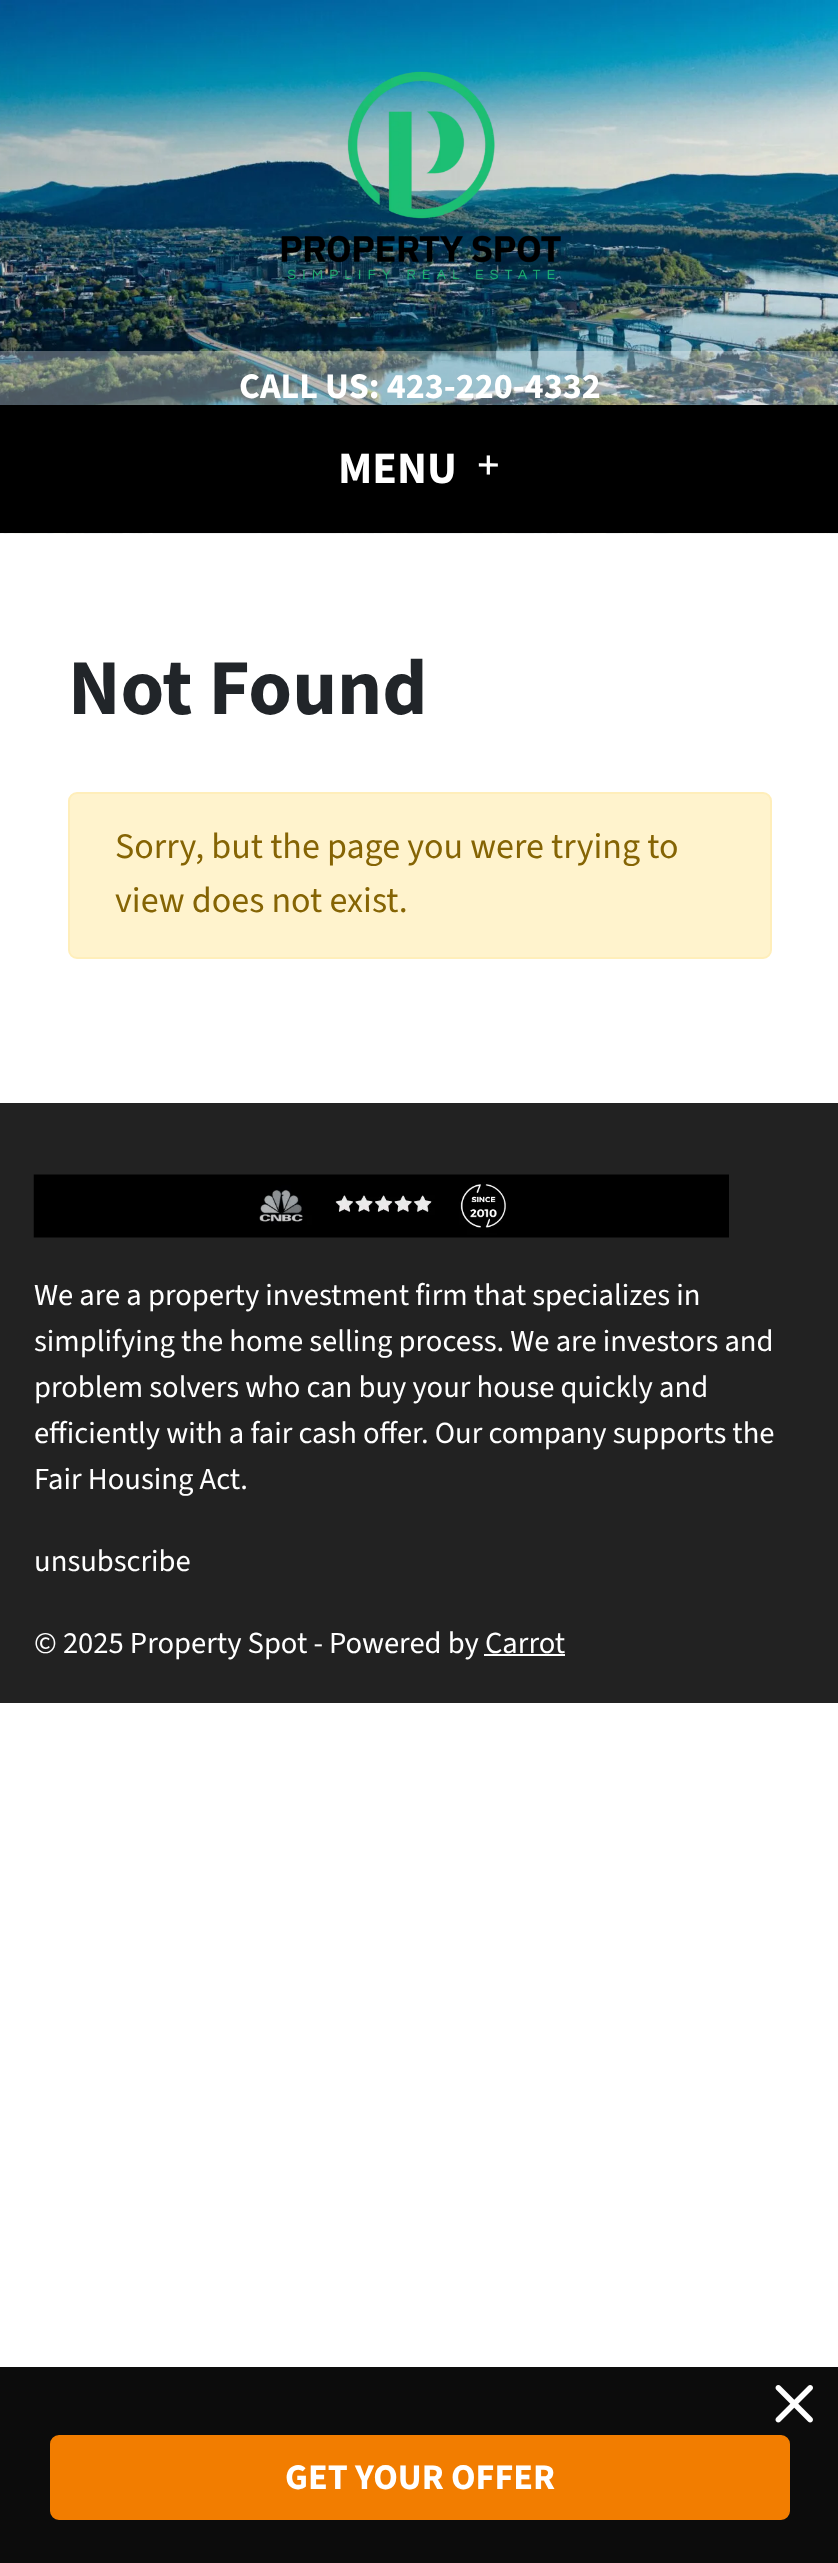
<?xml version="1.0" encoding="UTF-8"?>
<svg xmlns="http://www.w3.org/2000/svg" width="838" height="2563">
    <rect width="100%" height="100%" fill="#FFFFFF"/>
    <image x="0" y="0" width="838" height="534" href="img_01.png"/>
    <image x="281" y="71" width="280" height="209" href="img_02.png"/>
    <rect x="0" y="351" width="838" height="54" fill="#FFFFFF" fill-opacity="0.3"/>
    <text x="239" y="398" font-family="'Source Sans 3'" font-size="36" font-weight="700" fill="#FFFFFF">CALL US: 423-220-4332</text>
    <rect x="0" y="405" width="838" height="128" fill="#000000"/>
    <text x="338" y="483" font-family="'Source Sans 3'" font-size="45" font-weight="700" fill="#FFFFFF">MENU</text>
    <text x="474" y="464" transform="rotate(45 474 464)" font-family="DejaVu Sans" font-size="25" font-weight="700" fill="#FFFFFF">✕</text>
    <text x="68" y="714" font-family="'Source Sans 3'" font-size="79" font-weight="700" fill="#212529">Not Found</text>
    <rect x="69" y="793" width="702" height="165" rx="8" fill="#FFF3CD" stroke="#FFEEBA" stroke-width="2"/>
    <text font-family="'Source Sans 3'" font-size="36" fill="#856404">
        <tspan x="115" y="858">Sorry, but the page you were trying to</tspan>
        <tspan x="115" y="912">view does not exist.</tspan>
    </text>
    <rect x="0" y="1103" width="838" height="600" fill="#222222"/>
    <image x="33" y="1174" width="696" height="64" href="img_03.png"/>
    <text font-family="'Source Sans 3'" font-size="30.6" fill="#FFFFFF">
        <tspan x="34" y="1305">We are a property investment firm that specializes in</tspan>
        <tspan x="34" y="1351">simplifying the home selling process. We are investors and</tspan>
        <tspan x="34" y="1397">problem solvers who can buy your house quickly and</tspan>
        <tspan x="34" y="1443">efficiently with a fair cash offer. Our company supports the</tspan>
        <tspan x="34" y="1489">Fair Housing Act.</tspan>
    </text>
    <text x="34" y="1571" font-family="'Source Sans 3'" font-size="30.6" fill="#FFFFFF">unsubscribe</text>
    <text x="34" y="1653" font-family="'Source Sans 3'" font-size="30.6" fill="#FFFFFF">© 2025 Property Spot - Powered by Carrot</text>
    <rect x="484" y="1654" width="81" height="2" fill="#FFFFFF"/>
    <rect x="0" y="2367" width="838" height="196" fill="#0C0C0C"/>
    <image x="775" y="2385" width="38" height="38" href="img_04.png"/>
    <rect x="51" y="2436" width="738" height="83" rx="8" fill="#F27D00" stroke="#F27D00" stroke-width="2"/>
    <text x="285" y="2489" font-family="'Source Sans 3'" font-size="36" font-weight="700" fill="#FFFFFF">GET YOUR OFFER</text>
</svg>
